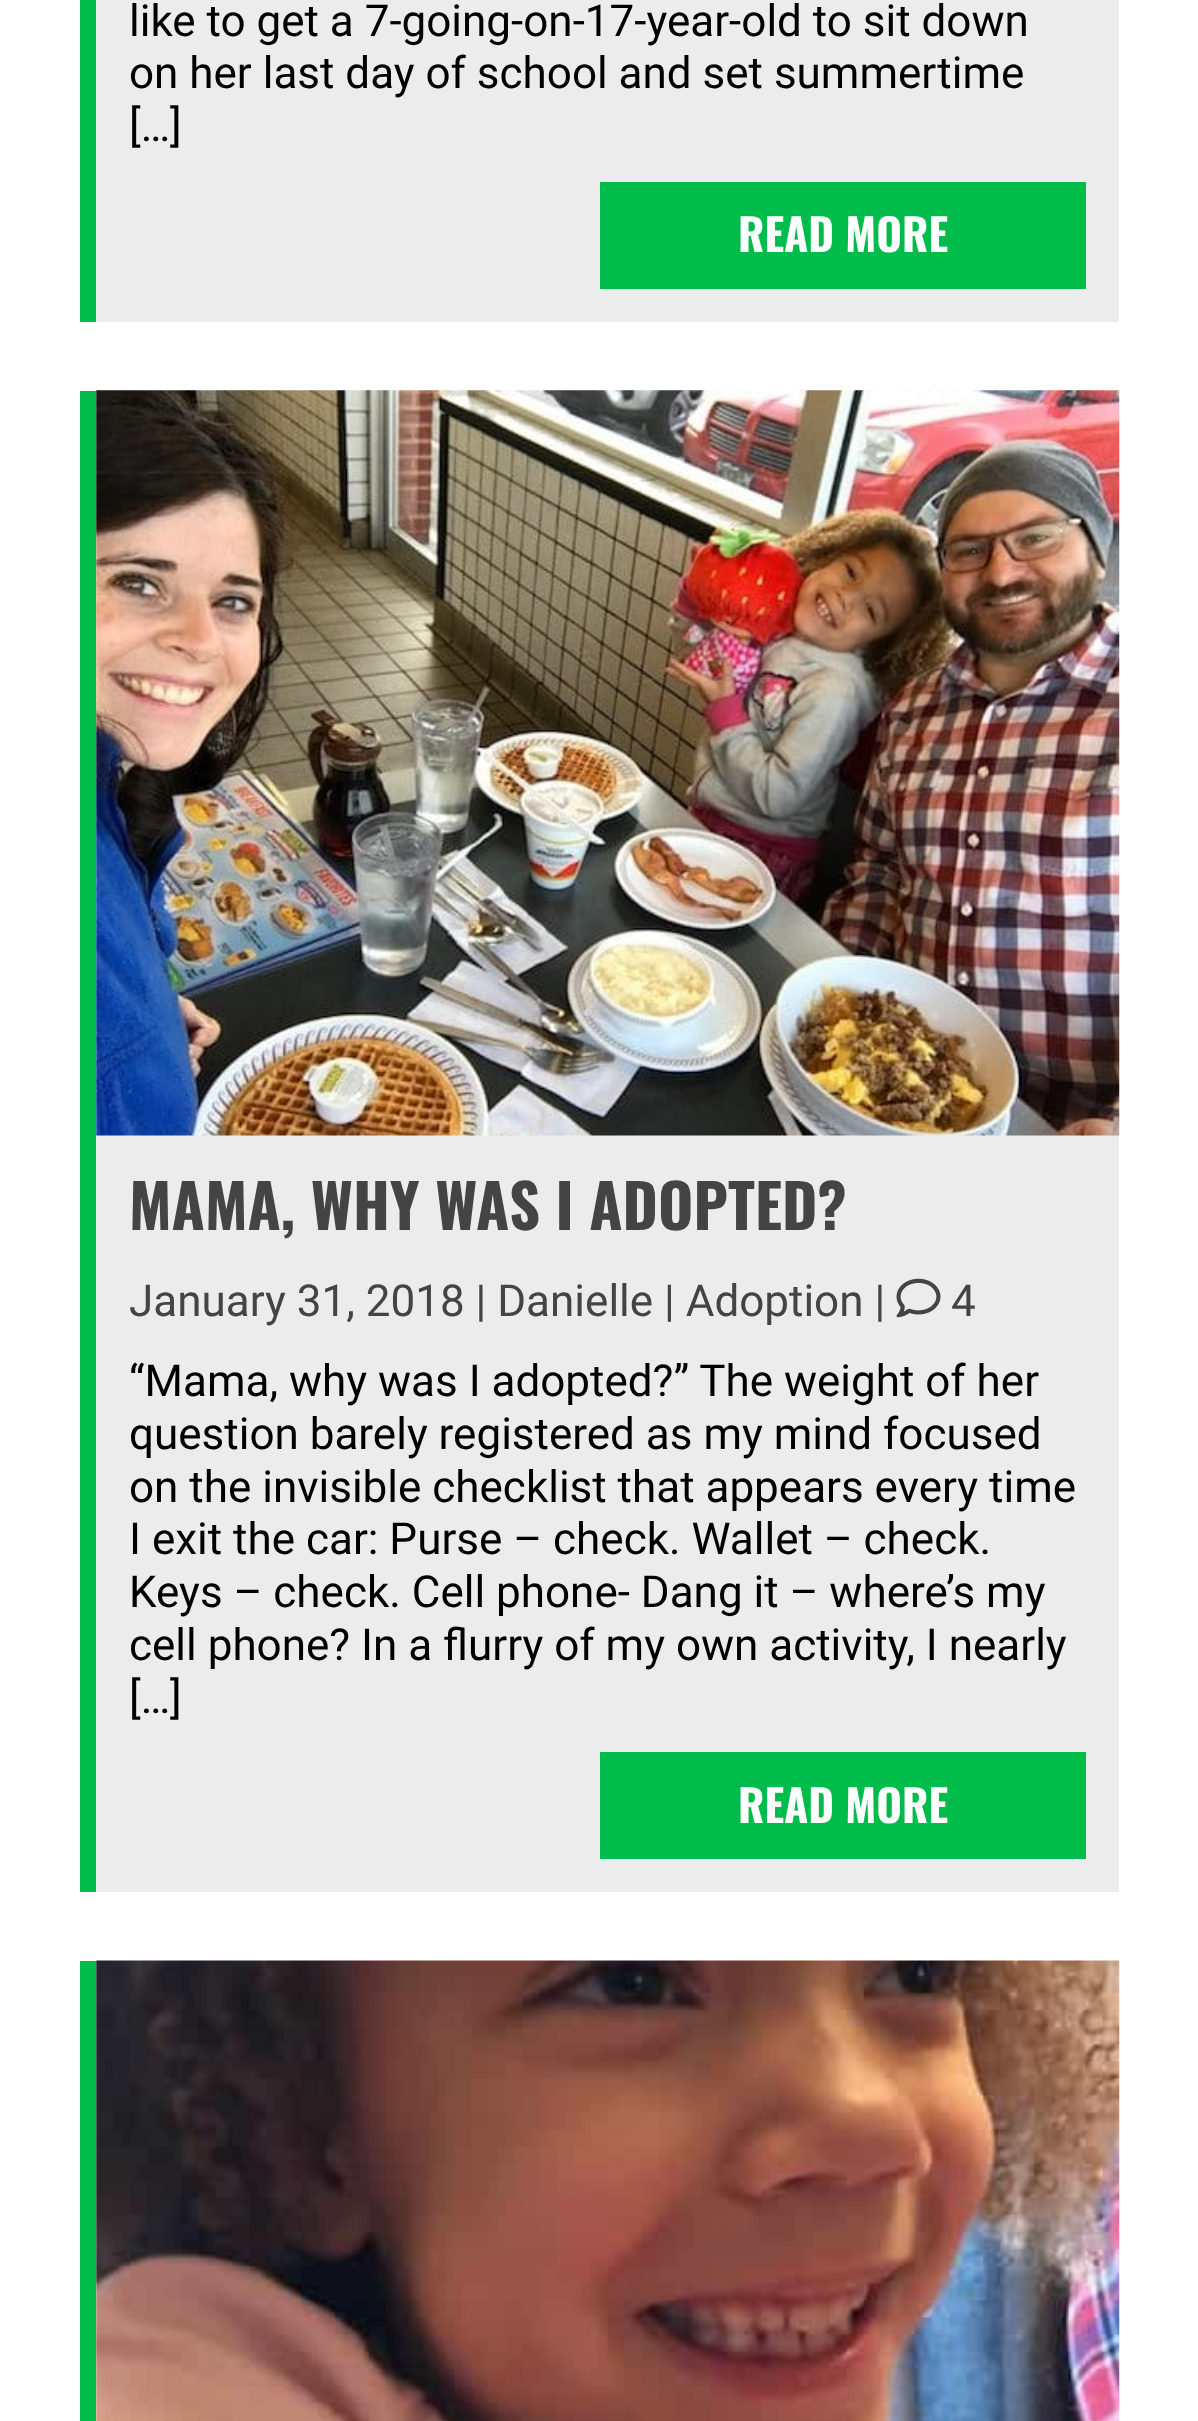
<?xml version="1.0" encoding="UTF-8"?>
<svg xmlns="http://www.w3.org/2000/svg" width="1198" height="2421">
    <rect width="100%" height="100%" fill="#FFFFFF"/>
    <rect x="80" y="0" width="16" height="322" fill="#00BC4B"/>
    <rect x="96" y="0" width="1023" height="322" fill="#ECECEC"/>
    <text font-family="Roboto" font-size="44" fill="#000000">
        <tspan x="129" y="36">like to get a 7-going-on-17-year-old to sit down</tspan>
        <tspan x="129" y="88">on her last day of school and set summertime</tspan>
        <tspan x="129" y="141">[…]</tspan>
    </text>
    <rect x="600" y="182" width="486" height="107" fill="#00BC4B"/>
    <text x="738" y="252" font-family="Oswald" font-size="44" font-weight="700" fill="#FFFFFF">READ MORE</text>
    <rect x="80" y="391" width="16" height="1501" fill="#00BC4B"/>
    <rect x="96" y="391" width="1023" height="1501" fill="#ECECEC"/>
    <image x="96" y="390" width="1024" height="746" href="img_01.png"/>
    <text x="129" y="1230" font-family="Oswald" font-size="60.5" font-weight="700" fill="#444444">MAMA, WHY WAS I ADOPTED?</text>
    <text x="129" y="1316" font-family="Roboto" font-size="44" fill="#444444">January 31, 2018 | Danielle | Adoption |</text>
    <image x="896" y="1278" width="45" height="40" href="img_02.png"/>
    <text x="951" y="1316" font-family="Roboto" font-size="44" fill="#444444">4</text>
    <text font-family="Roboto" font-size="44" fill="#000000">
        <tspan x="129" y="1396">“Mama, why was I adopted?” The weight of her</tspan>
        <tspan x="129" y="1449">question barely registered as my mind focused</tspan>
        <tspan x="129" y="1502">on the invisible checklist that appears every time</tspan>
        <tspan x="129" y="1554">I exit the car: Purse – check. Wallet – check.</tspan>
        <tspan x="129" y="1607">Keys – check. Cell phone- Dang it – where’s my</tspan>
        <tspan x="129" y="1660">cell phone? In a flurry of my own activity, I nearly</tspan>
        <tspan x="129" y="1713">[…]</tspan>
    </text>
    <rect x="600" y="1752" width="486" height="107" fill="#00BC4B"/>
    <text x="738" y="1823" font-family="Oswald" font-size="44" font-weight="700" fill="#FFFFFF">READ MORE</text>
    <rect x="80" y="1961" width="16" height="460" fill="#00BC4B"/>
    <image x="96" y="1960" width="1024" height="461" href="img_03.png"/>
</svg>
